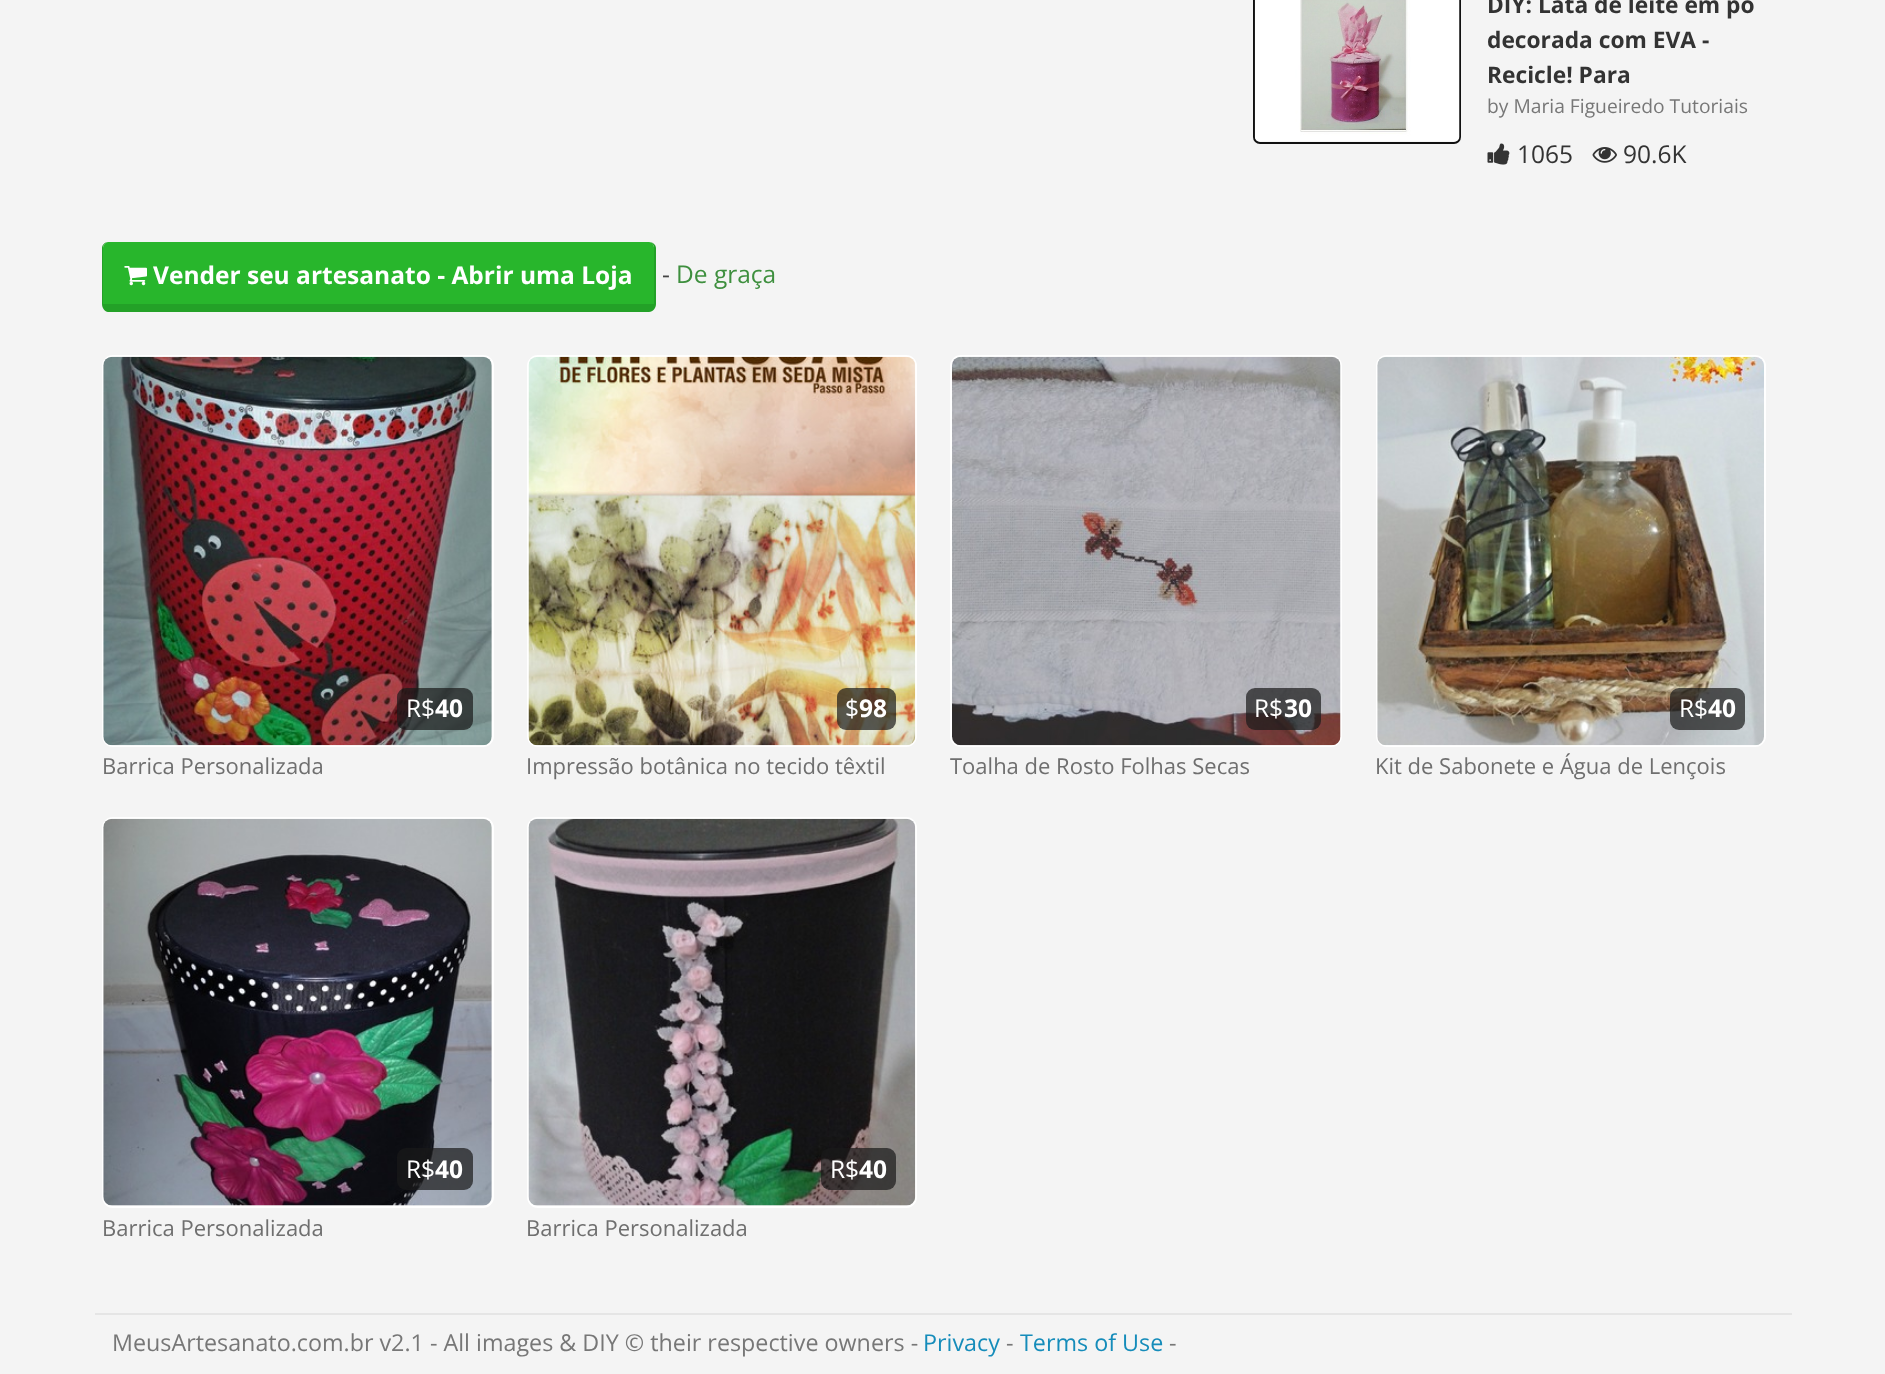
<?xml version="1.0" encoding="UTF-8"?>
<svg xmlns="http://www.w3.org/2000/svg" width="1885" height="1374">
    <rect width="100%" height="100%" fill="#F4F4F4"/>
    <rect x="1254" y="-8" width="206" height="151" rx="6" fill="none" stroke="#111111" stroke-width="2"/>
    <image x="1254" y="0" width="206" height="142" href="img_01.png"/>
    <text font-family="Open Sans" font-size="22.75" font-weight="700" fill="#333333">
        <tspan x="1487" y="13">DIY: Lata de leite em pó</tspan>
        <tspan x="1487" y="48">decorada com EVA -</tspan>
        <tspan x="1487" y="83">Recicle! Para</tspan>
    </text>
    <text x="1487" y="113" font-family="Open Sans" font-size="19.25" fill="#777777">by Maria Figueiredo Tutoriais</text>
    <image x="1487" y="143" width="23" height="22" href="img_02.png"/>
    <text x="1517" y="163" font-family="Open Sans" font-size="24.5" fill="#333333">1065</text>
    <image x="1592" y="147" width="25" height="16" href="img_03.png"/>
    <text x="1623" y="163" font-family="Open Sans" font-size="24.5" fill="#333333">90.6K</text>
    <path d="M 108 242 H 649 C 652 242 654 245 654 248 V 304 H 103 V 248 C 103 245 106 242 108 242 Z" fill="#28B62C"/>
    <path d="M 108 242 H 649 C 653 242 656 245 656 248 V 304 C 656 308 653 312 649 312 H 108 C 105 312 102 308 102 304 V 248 C 102 245 105 242 108 242 Z M 108 242 H 649 C 652 242 654 245 654 248 V 304 H 103 V 248 C 103 245 106 242 108 242 Z" fill="#23A127" fill-rule="evenodd"/>
    <image x="124" y="266" width="23" height="20" href="img_04.png"/>
    <text x="153" y="284" font-family="Open Sans" font-size="24.5" font-weight="700" fill="#FFFFFF">Vender seu artesanato - Abrir uma Loja</text>
    <text x="662" y="283" font-family="Open Sans" font-size="24.5" fill="#444444">-</text>
    <text x="676" y="283" font-family="Open Sans" font-size="24.5" fill="#3E8F3E">De graça</text>
    <rect x="103" y="356" width="390" height="390" rx="10" fill="none" stroke="#FFFFFF" stroke-width="2"/>
    <image x="103" y="356" width="389" height="390" href="img_05.png"/>
    <rect x="397" y="688" width="76" height="42" rx="9" fill="#191919" fill-opacity="0.7"/>
    <text x="406" y="717" font-family="Open Sans" font-size="24.5" fill="#FFFFFF">R$</text>
    <text x="435" y="717" font-family="Open Sans" font-size="24.5" font-weight="700" fill="#FFFFFF">40</text>
    <text x="102" y="774" font-family="Open Sans" font-size="22" fill="#6F6F6F">Barrica Personalizada</text>
    <rect x="528" y="356" width="388" height="390" rx="10" fill="none" stroke="#FFFFFF" stroke-width="2"/>
    <image x="528" y="356" width="388" height="390" href="img_06.png"/>
    <rect x="837" y="688" width="59" height="42" rx="9" fill="#191919" fill-opacity="0.7"/>
    <text x="845" y="717" font-family="Open Sans" font-size="24.5" fill="#FFFFFF">$</text>
    <text x="859" y="717" font-family="Open Sans" font-size="24.5" font-weight="700" fill="#FFFFFF">98</text>
    <text x="526" y="774" font-family="Open Sans" font-size="22" fill="#6F6F6F">Impressão botânica no tecido têxtil</text>
    <rect x="951" y="356" width="390" height="390" rx="10" fill="none" stroke="#FFFFFF" stroke-width="2"/>
    <image x="952" y="356" width="389" height="390" href="img_07.png"/>
    <rect x="1246" y="688" width="75" height="42" rx="9" fill="#191919" fill-opacity="0.7"/>
    <text x="1254" y="717" font-family="Open Sans" font-size="24.5" fill="#FFFFFF">R$</text>
    <text x="1284" y="717" font-family="Open Sans" font-size="24.5" font-weight="700" fill="#FFFFFF">30</text>
    <text x="950" y="774" font-family="Open Sans" font-size="22" fill="#6F6F6F">Toalha de Rosto Folhas Secas</text>
    <rect x="1377" y="356" width="388" height="390" rx="10" fill="none" stroke="#FFFFFF" stroke-width="2"/>
    <image x="1377" y="356" width="387" height="390" href="img_08.png"/>
    <rect x="1670" y="688" width="75" height="42" rx="9" fill="#191919" fill-opacity="0.7"/>
    <text x="1679" y="717" font-family="Open Sans" font-size="24.5" fill="#FFFFFF">R$</text>
    <text x="1708" y="717" font-family="Open Sans" font-size="24.5" font-weight="700" fill="#FFFFFF">40</text>
    <text x="1375" y="774" font-family="Open Sans" font-size="22" fill="#6F6F6F">Kit de Sabonete e Água de Lençois</text>
    <rect x="103" y="818" width="390" height="389" rx="10" fill="none" stroke="#FFFFFF" stroke-width="2"/>
    <image x="103" y="818" width="389" height="388" href="img_09.png"/>
    <rect x="397" y="1148" width="76" height="42" rx="9" fill="#191919" fill-opacity="0.7"/>
    <text x="406" y="1178" font-family="Open Sans" font-size="24.5" fill="#FFFFFF">R$</text>
    <text x="435" y="1178" font-family="Open Sans" font-size="24.5" font-weight="700" fill="#FFFFFF">40</text>
    <text x="102" y="1236" font-family="Open Sans" font-size="22" fill="#6F6F6F">Barrica Personalizada</text>
    <rect x="528" y="818" width="388" height="389" rx="10" fill="none" stroke="#FFFFFF" stroke-width="2"/>
    <image x="528" y="818" width="388" height="388" href="img_10.png"/>
    <rect x="821" y="1148" width="75" height="42" rx="9" fill="#191919" fill-opacity="0.7"/>
    <text x="830" y="1178" font-family="Open Sans" font-size="24.5" fill="#FFFFFF">R$</text>
    <text x="859" y="1178" font-family="Open Sans" font-size="24.5" font-weight="700" fill="#FFFFFF">40</text>
    <text x="526" y="1236" font-family="Open Sans" font-size="22" fill="#6F6F6F">Barrica Personalizada</text>
    <rect x="95" y="1313" width="1697" height="2" fill="#E5E5E5"/>
    <text x="112" y="1351" font-family="Open Sans" font-size="23.3" fill="#777777">MeusArtesanato.com.br v2.1 - All images &amp; DIY © their respective owners -</text>
    <text x="923" y="1351" font-family="Open Sans" font-size="23.3" fill="#158CBA">Privacy</text>
    <text x="1006" y="1351" font-family="Open Sans" font-size="23.3" fill="#777777">-</text>
    <text x="1020" y="1351" font-family="Open Sans" font-size="23.3" fill="#158CBA">Terms of Use</text>
    <text x="1169" y="1351" font-family="Open Sans" font-size="23.3" fill="#777777">-</text>
</svg>
